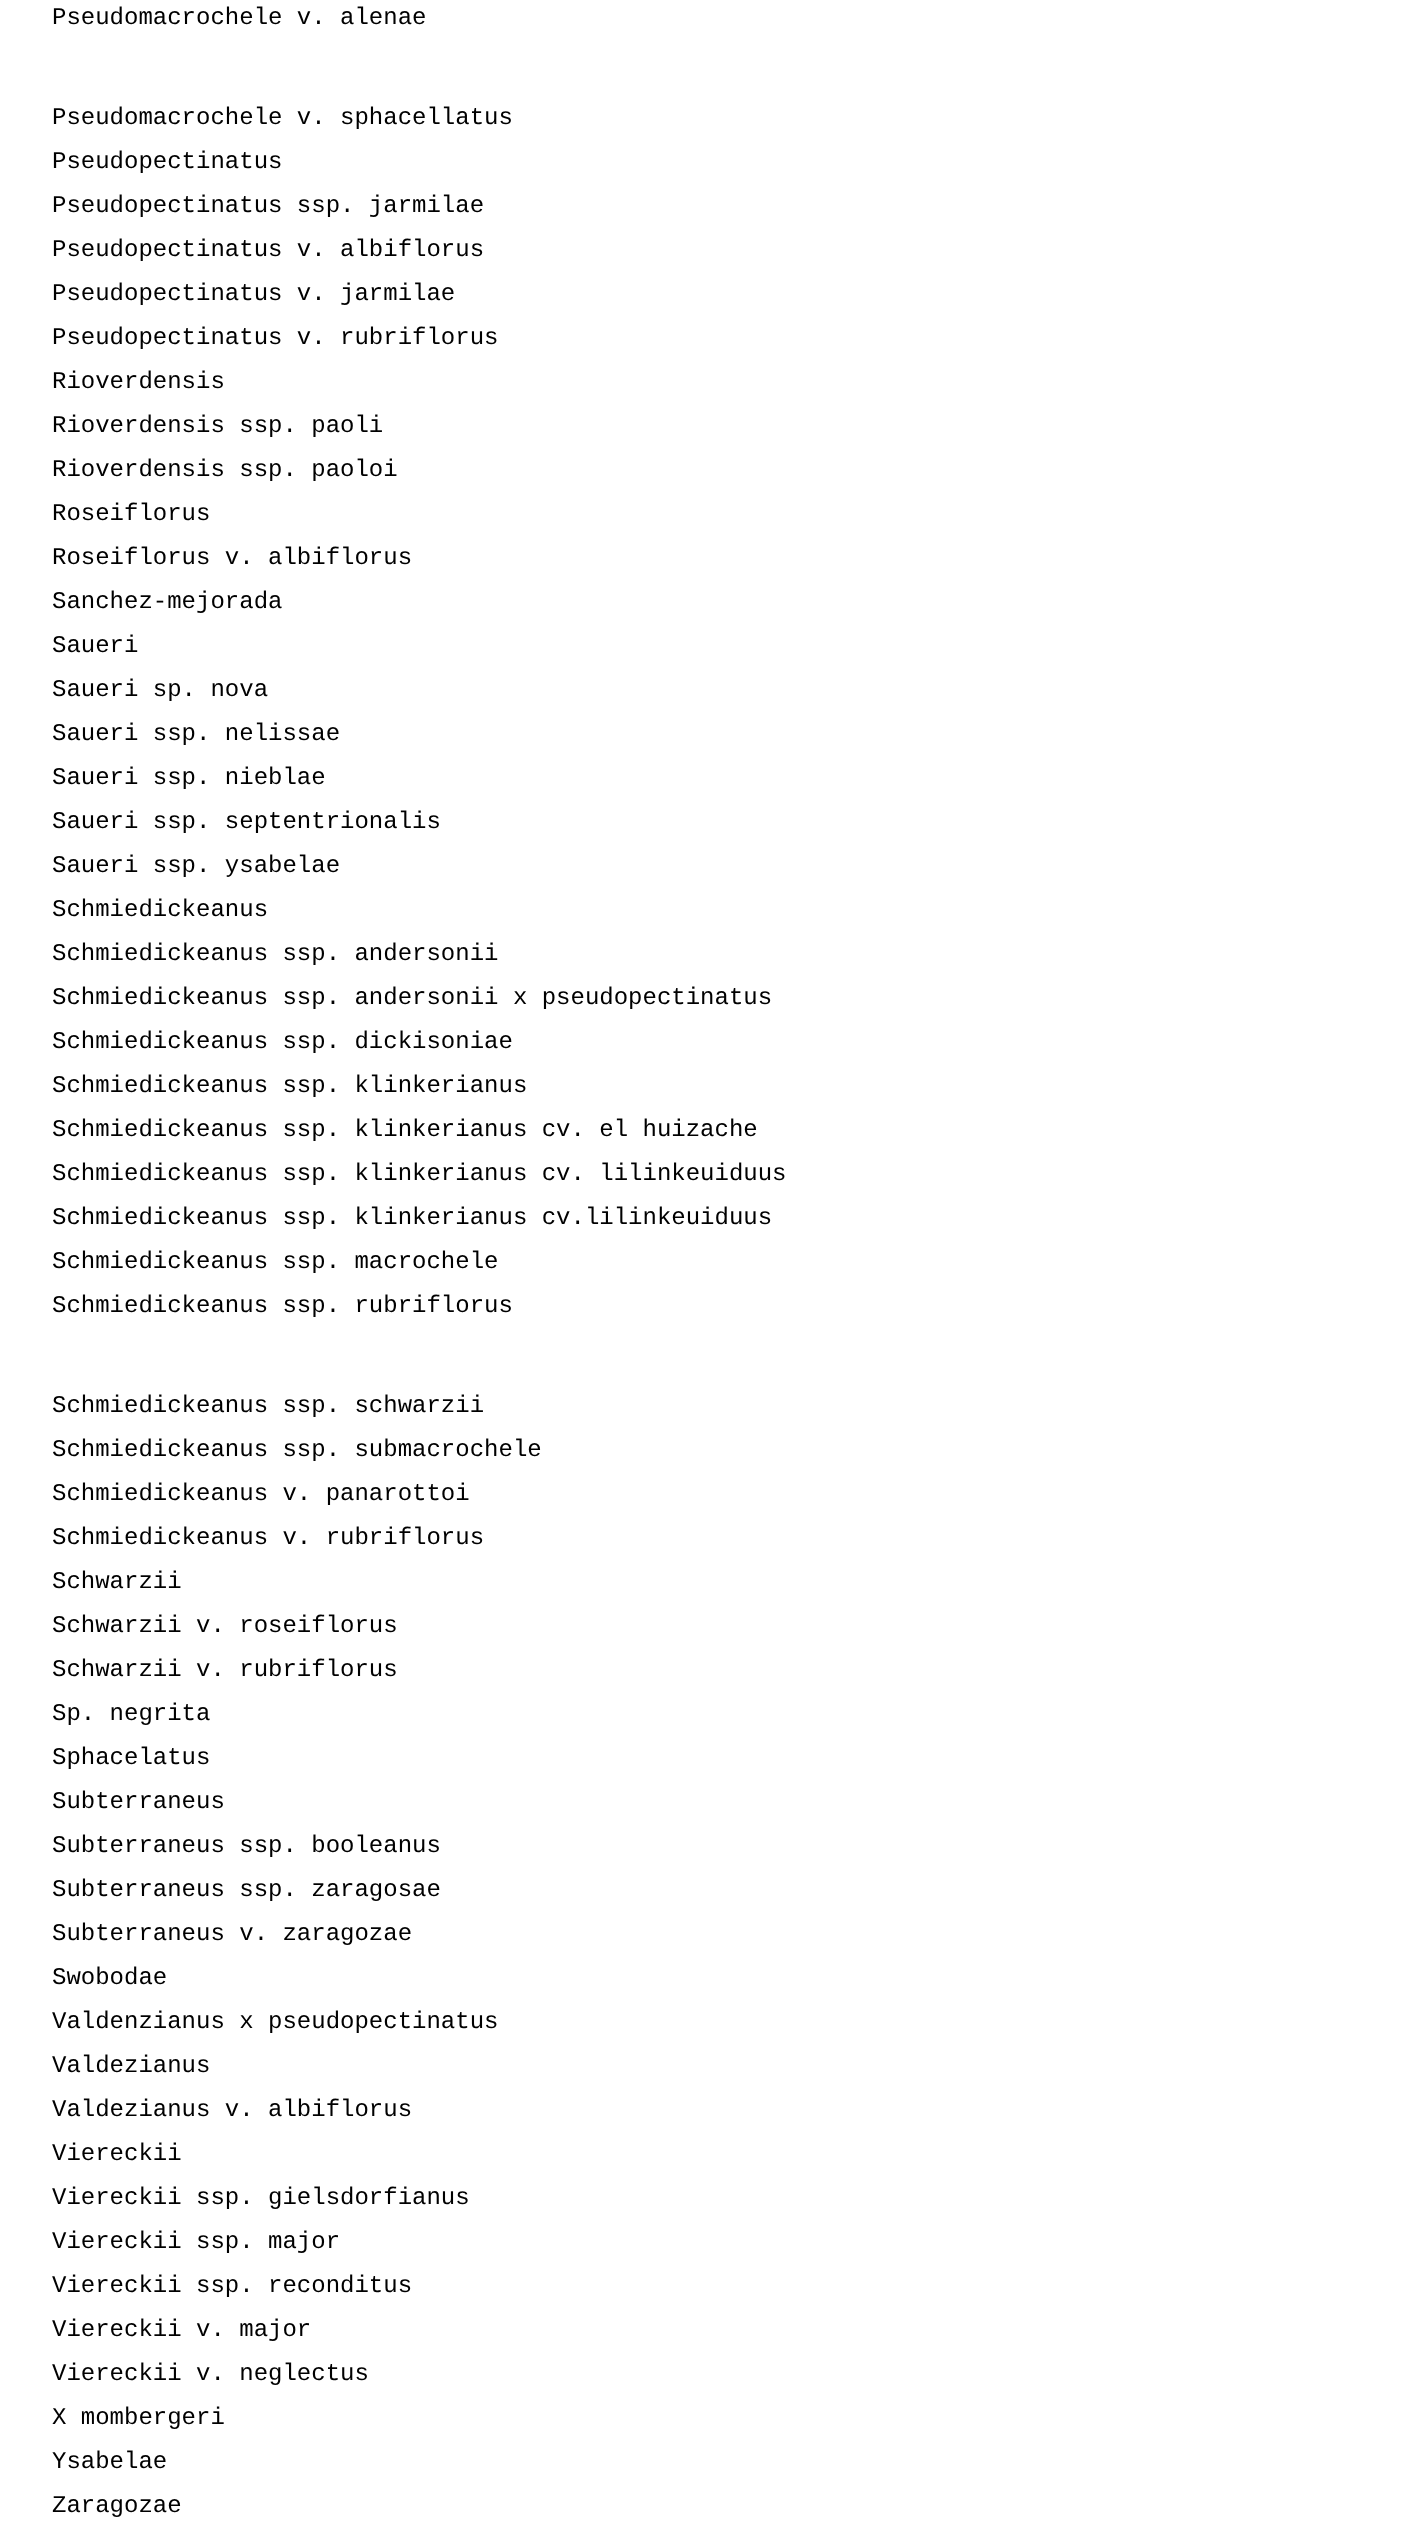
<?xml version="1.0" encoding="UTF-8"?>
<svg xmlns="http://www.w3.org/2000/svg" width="1412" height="2527">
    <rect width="100%" height="100%" fill="#FFFFFF"/>
    <text x="52" y="24" font-family="Liberation Mono" font-size="24" fill="#000000">Pseudomacrochele v. alenae</text>
    <text font-family="Liberation Mono" font-size="24" fill="#000000">
        <tspan x="52" y="124">Pseudomacrochele v. sphacellatus</tspan>
        <tspan x="52" y="168">Pseudopectinatus</tspan>
        <tspan x="52" y="212">Pseudopectinatus ssp. jarmilae</tspan>
        <tspan x="52" y="256">Pseudopectinatus v. albiflorus</tspan>
        <tspan x="52" y="300">Pseudopectinatus v. jarmilae</tspan>
        <tspan x="52" y="344">Pseudopectinatus v. rubriflorus</tspan>
        <tspan x="52" y="388">Rioverdensis</tspan>
        <tspan x="52" y="432">Rioverdensis ssp. paoli</tspan>
        <tspan x="52" y="476">Rioverdensis ssp. paoloi</tspan>
        <tspan x="52" y="520">Roseiflorus</tspan>
        <tspan x="52" y="564">Roseiflorus v. albiflorus</tspan>
        <tspan x="52" y="608">Sanchez-mejorada</tspan>
        <tspan x="52" y="652">Saueri</tspan>
        <tspan x="52" y="696">Saueri sp. nova</tspan>
        <tspan x="52" y="740">Saueri ssp. nelissae</tspan>
        <tspan x="52" y="784">Saueri ssp. nieblae</tspan>
        <tspan x="52" y="828">Saueri ssp. septentrionalis</tspan>
        <tspan x="52" y="872">Saueri ssp. ysabelae</tspan>
        <tspan x="52" y="916">Schmiedickeanus</tspan>
        <tspan x="52" y="960">Schmiedickeanus ssp. andersonii</tspan>
        <tspan x="52" y="1004">Schmiedickeanus ssp. andersonii x pseudopectinatus</tspan>
        <tspan x="52" y="1048">Schmiedickeanus ssp. dickisoniae</tspan>
        <tspan x="52" y="1092">Schmiedickeanus ssp. klinkerianus</tspan>
        <tspan x="52" y="1136">Schmiedickeanus ssp. klinkerianus cv. el huizache</tspan>
        <tspan x="52" y="1180">Schmiedickeanus ssp. klinkerianus cv. lilinkeuiduus</tspan>
        <tspan x="52" y="1224">Schmiedickeanus ssp. klinkerianus cv.lilinkeuiduus</tspan>
        <tspan x="52" y="1268">Schmiedickeanus ssp. macrochele</tspan>
        <tspan x="52" y="1312">Schmiedickeanus ssp. rubriflorus</tspan>
    </text>
    <text font-family="Liberation Mono" font-size="24" fill="#000000">
        <tspan x="52" y="1412">Schmiedickeanus ssp. schwarzii</tspan>
        <tspan x="52" y="1456">Schmiedickeanus ssp. submacrochele</tspan>
        <tspan x="52" y="1500">Schmiedickeanus v. panarottoi</tspan>
        <tspan x="52" y="1544">Schmiedickeanus v. rubriflorus</tspan>
        <tspan x="52" y="1588">Schwarzii</tspan>
        <tspan x="52" y="1632">Schwarzii v. roseiflorus</tspan>
        <tspan x="52" y="1676">Schwarzii v. rubriflorus</tspan>
        <tspan x="52" y="1720">Sp. negrita</tspan>
        <tspan x="52" y="1764">Sphacelatus</tspan>
        <tspan x="52" y="1808">Subterraneus</tspan>
        <tspan x="52" y="1852">Subterraneus ssp. booleanus</tspan>
        <tspan x="52" y="1896">Subterraneus ssp. zaragosae</tspan>
        <tspan x="52" y="1940">Subterraneus v. zaragozae</tspan>
        <tspan x="52" y="1984">Swobodae</tspan>
        <tspan x="52" y="2028">Valdenzianus x pseudopectinatus</tspan>
        <tspan x="52" y="2072">Valdezianus</tspan>
        <tspan x="52" y="2116">Valdezianus v. albiflorus</tspan>
        <tspan x="52" y="2160">Viereckii</tspan>
        <tspan x="52" y="2204">Viereckii ssp. gielsdorfianus</tspan>
        <tspan x="52" y="2248">Viereckii ssp. major</tspan>
        <tspan x="52" y="2292">Viereckii ssp. reconditus</tspan>
        <tspan x="52" y="2336">Viereckii v. major</tspan>
        <tspan x="52" y="2380">Viereckii v. neglectus</tspan>
        <tspan x="52" y="2424">X mombergeri</tspan>
        <tspan x="52" y="2468">Ysabelae</tspan>
        <tspan x="52" y="2512">Zaragozae</tspan>
    </text>
</svg>
